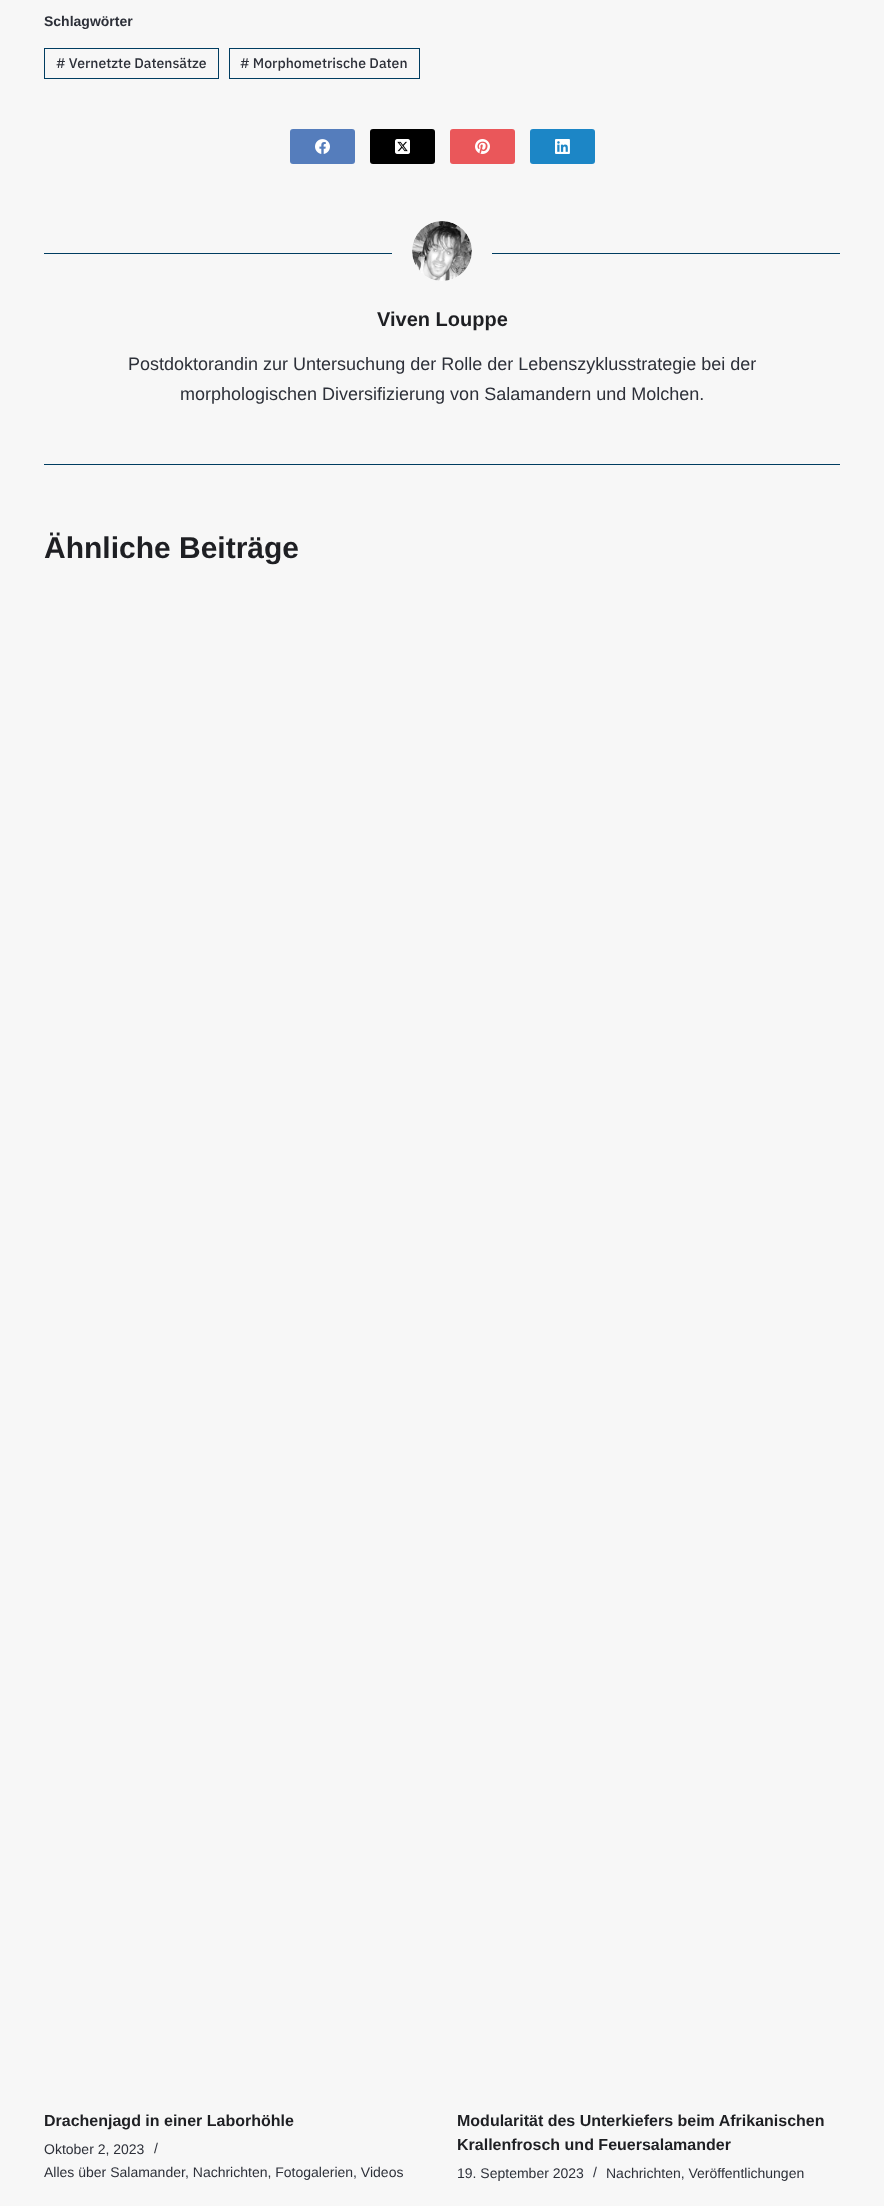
<?xml version="1.0" encoding="UTF-8"?>
<svg xmlns="http://www.w3.org/2000/svg" width="884" height="2206">
    <rect width="100%" height="100%" fill="#F7F7F7"/>
    <text x="44" y="26" font-family="Liberation Sans" font-size="14" font-weight="700" fill="#2D3039">Schlagwörter</text>
    <rect x="44.5" y="48.5" width="174" height="30" fill="none" stroke="#003D61"/>
    <text x="56" y="68" font-family="IBM Plex Sans" font-size="14" font-weight="500" fill="#2D3039"># Vernetzte Datensätze</text>
    <rect x="229.5" y="48.5" width="190" height="30" fill="none" stroke="#003D61"/>
    <text x="240" y="68" font-family="IBM Plex Sans" font-size="14" font-weight="500" fill="#2D3039"># Morphometrische Daten</text>
    <rect x="290" y="129" width="65" height="35" rx="3" fill="#557DBC"/>
    <image x="315" y="139" width="15" height="15" href="img_01.png"/>
    <rect x="370" y="129" width="65" height="35" rx="3" fill="#000000"/>
    <image x="395" y="139" width="15" height="15" href="img_02.png"/>
    <rect x="450" y="129" width="65" height="35" rx="3" fill="#EA575A"/>
    <image x="475" y="139" width="15" height="15" href="img_03.png"/>
    <rect x="530" y="129" width="65" height="35" rx="3" fill="#1C86C6"/>
    <image x="555" y="139" width="15" height="15" href="img_04.png"/>
    <rect x="44" y="464" width="796" height="1" fill="#003D61"/>
    <rect x="44" y="253" width="348" height="1" fill="#003D61"/>
    <image x="412" y="221" width="60" height="60" href="img_05.png"/>
    <rect x="492" y="253" width="348" height="1" fill="#003D61"/>
    <text x="377" y="326" font-family="Liberation Sans" font-size="20" font-weight="700" fill="#1E1F23">Viven Louppe</text>
    <text x="128" y="370" font-family="Liberation Sans" font-size="18" fill="#2D3039">Postdoktorandin zur Untersuchung der Rolle der Lebenszyklusstrategie bei der</text>
    <text x="180" y="400" font-family="Liberation Sans" font-size="18" fill="#2D3039">morphologischen Diversifizierung von Salamandern und Molchen.</text>
    <text x="44" y="558" font-family="Liberation Sans" font-size="30" font-weight="700" fill="#1E1F23">Ähnliche Beiträge</text>
    <text x="44" y="2126" font-family="Liberation Sans" font-size="16" font-weight="700" fill="#1E1F23">Drachenjagd in einer Laborhöhle</text>
    <text x="44" y="2154" font-family="Liberation Sans" font-size="14" fill="#2D3039">Oktober 2, 2023</text>
    <text x="154" y="2153" font-family="Liberation Sans" font-size="14" fill="#2D3039">/</text>
    <text x="44" y="2177" font-family="Liberation Sans" font-size="14" fill="#2D3039">Alles über Salamander</text>
    <text x="185" y="2177" font-family="Liberation Sans" font-size="14" fill="#2D3039">, Nachrichten, Fotogalerien, Videos</text>
    <text font-family="Liberation Sans" font-size="16" font-weight="700" fill="#1E1F23">
        <tspan x="457" y="2126">Modularität des Unterkiefers beim Afrikanischen</tspan>
        <tspan x="457" y="2150">Krallenfrosch und Feuersalamander</tspan>
    </text>
    <text x="457" y="2178" font-family="Liberation Sans" font-size="14" fill="#2D3039">19. September 2023</text>
    <text x="593" y="2177" font-family="Liberation Sans" font-size="14" fill="#2D3039">/</text>
    <text x="606" y="2178" font-family="Liberation Sans" font-size="14" fill="#2D3039">Nachrichten, Veröffentlichungen</text>
</svg>
